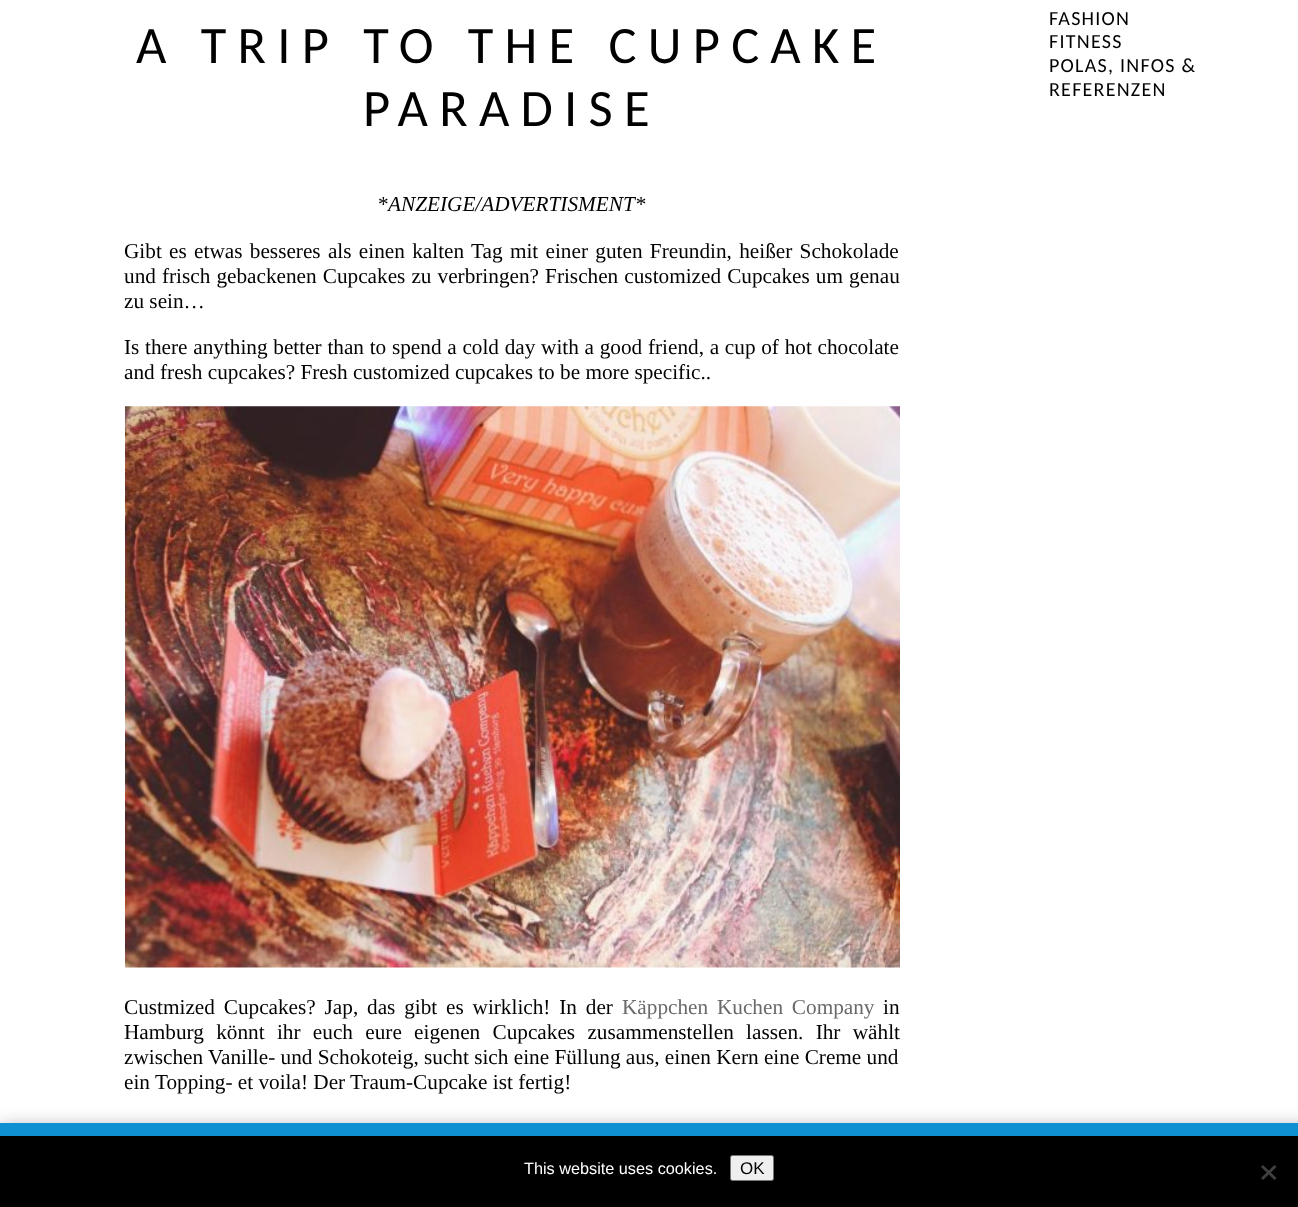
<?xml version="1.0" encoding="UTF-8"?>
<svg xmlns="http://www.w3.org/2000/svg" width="1298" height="1207">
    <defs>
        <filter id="blur1" x="-50%" y="-200%" width="200%" height="500%"><feGaussianBlur stdDeviation="9.5"/></filter>
    </defs>
    <rect width="100%" height="100%" fill="#FFFFFF"/>
    <text x="136" y="63" font-family="Carlito" font-size="52.5" letter-spacing="11.25" fill="#000000">A TRIP TO THE CUPCAKE</text>
    <text x="363" y="126" font-family="Carlito" font-size="52.5" letter-spacing="11.25" fill="#000000">PARADISE</text>
    <text x="378" y="211" font-family="Liberation Serif" font-size="21.25" fill="#000000">*</text>
    <text x="388" y="211" font-family="Liberation Serif" font-size="21.25" font-style="italic" fill="#000000">ANZEIGE/ADVERTISMENT*</text>
    <text font-family="Liberation Serif" font-size="21.25" fill="#000000">
        <tspan x="124" y="258" word-spacing="2">Gibt es etwas besseres als einen kalten Tag mit einer guten Freundin, heißer Schokolade</tspan>
        <tspan x="124" y="283" word-spacing="0.75">und frisch gebackenen Cupcakes zu verbringen? Frischen customized Cupcakes um genau</tspan>
        <tspan x="124" y="308">zu sein…</tspan>
    </text>
    <text font-family="Liberation Serif" font-size="21.25" fill="#000000">
        <tspan x="124" y="354" word-spacing="0.4">Is there anything better than to spend a cold day with a good friend, a cup of hot chocolate</tspan>
        <tspan x="124" y="379">and fresh cupcakes? Fresh customized cupcakes to be more specific..</tspan>
    </text>
    <image x="125" y="406" width="775" height="562" href="img_01.png"/>
    <text x="124" y="1014" word-spacing="3.5" font-family="Liberation Serif" font-size="21.25" fill="#000000">Custmized Cupcakes? Jap, das gibt es wirklich! In der</text>
    <text x="622" y="1014" word-spacing="3.5" font-family="Liberation Serif" font-size="21.25" fill="#696969">Käppchen Kuchen Company</text>
    <text x="883" y="1014" font-family="Liberation Serif" font-size="21.25" fill="#000000">in</text>
    <text font-family="Liberation Serif" font-size="21.25" fill="#000000">
        <tspan x="124" y="1039" word-spacing="7">Hamburg könnt ihr euch eure eigenen Cupcakes zusammenstellen lassen. Ihr wählt</tspan>
        <tspan x="124" y="1064">zwischen Vanille- und Schokoteig, sucht sich eine Füllung aus, einen Kern eine Creme und</tspan>
        <tspan x="124" y="1089">ein Topping- et voila! Der Traum-Cupcake ist fertig!</tspan>
    </text>
    <text font-family="Carlito" font-size="20" letter-spacing="1.25" fill="#000000">
        <tspan x="1049" y="25">FASHION</tspan>
        <tspan x="1049" y="48">FITNESS</tspan>
        <tspan x="1049" y="72">POLAS, INFOS &amp;</tspan>
        <tspan x="1049" y="96">REFERENZEN</tspan>
    </text>
    <rect x="0" y="1128" width="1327" height="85" fill="#000000" fill-opacity="0.4" filter="url(#blur1)"/>
    <rect x="0" y="1123" width="1298" height="13" fill="#0E90D2"/>
    <rect x="0" y="1136" width="1298" height="71" fill="#000000"/>
    <text x="524" y="1174" font-family="Liberation Sans" font-size="16.25" fill="#FFFFFF">This website uses cookies.</text>
    <rect x="730.5" y="1155.5" width="43" height="25" rx="2" fill="#EFEFEF" stroke="#767676"/>
    <text x="740" y="1174" font-family="Liberation Sans" font-size="17" fill="#000000">OK</text>
    <path d="M 1274.5 1165 L 1276.5 1167 L 1263 1180 L 1261 1178 Z" fill="#404040"/>
    <path d="M 1261 1167 L 1263 1165 L 1276.5 1178 L 1274.5 1180 Z" fill="#404040"/>
</svg>
